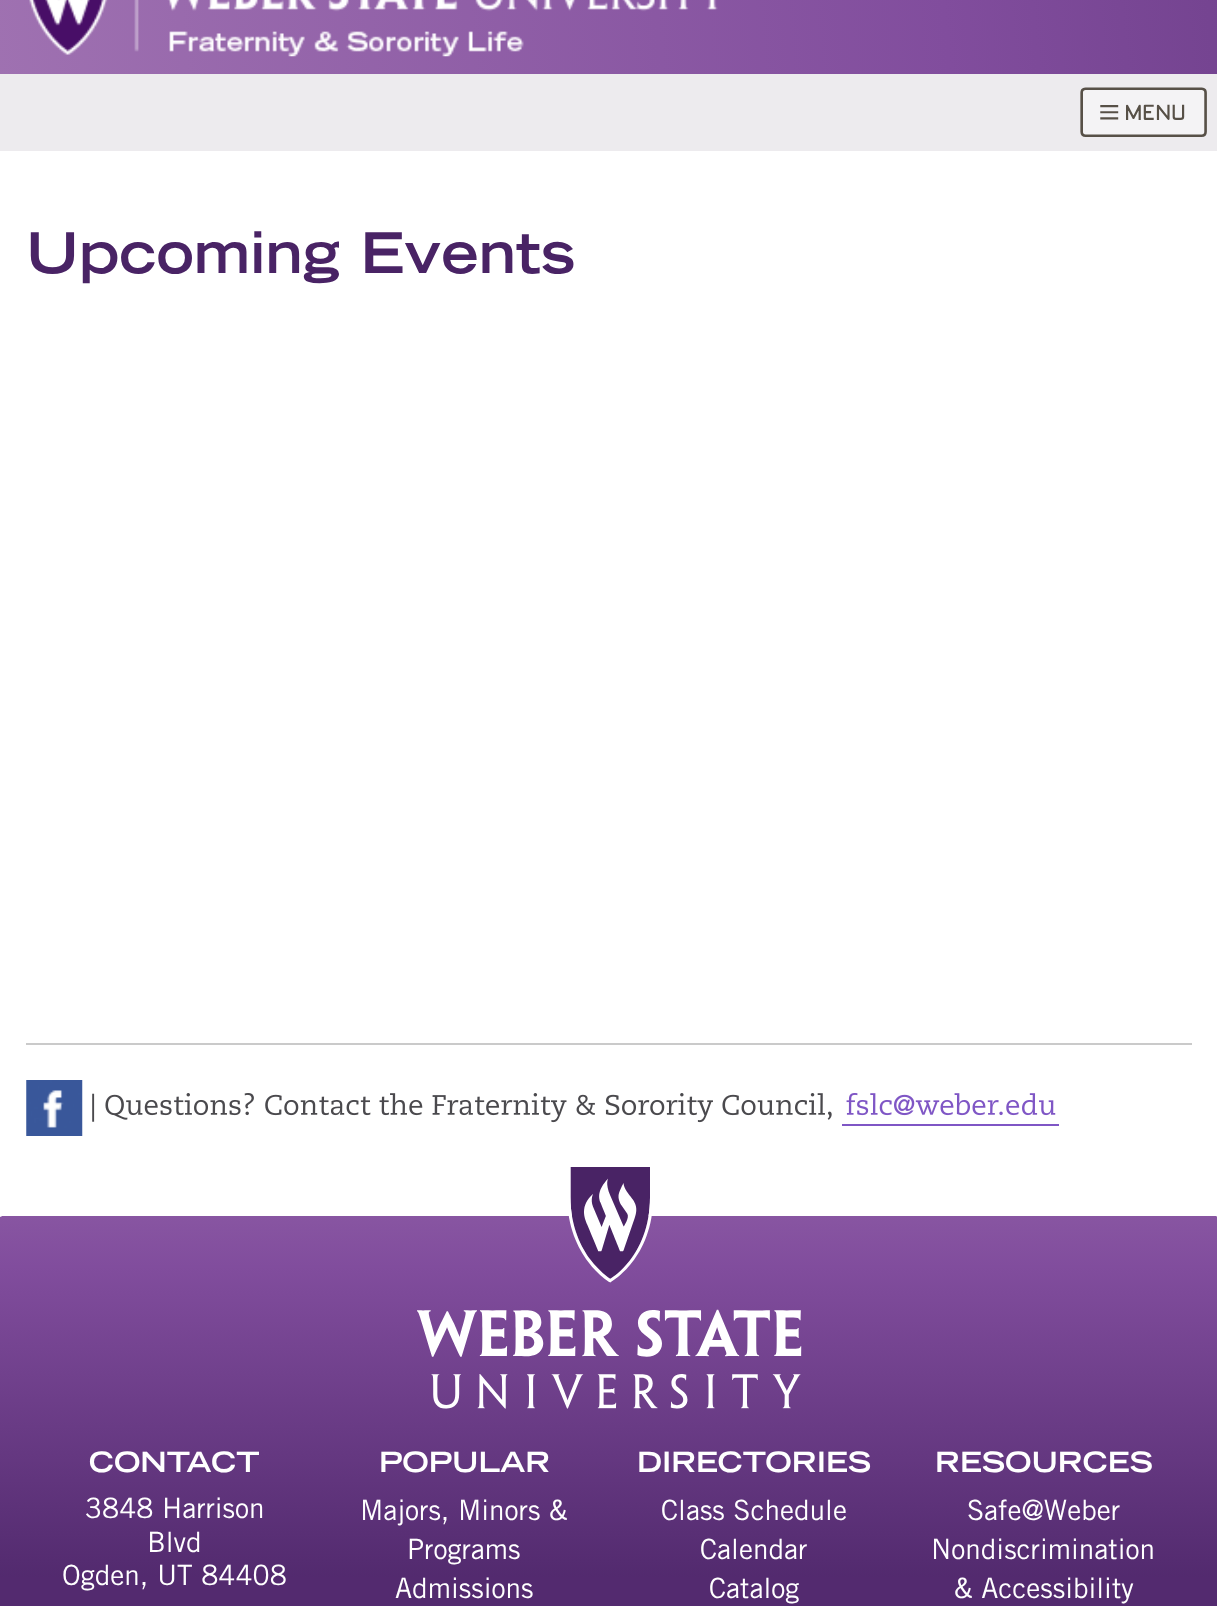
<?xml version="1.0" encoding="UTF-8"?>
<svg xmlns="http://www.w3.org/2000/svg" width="1217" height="1606">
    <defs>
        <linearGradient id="g1" gradientUnits="userSpaceOnUse" x1="-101" y1="94" x2="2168" y2="-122"><stop offset="0" stop-color="#A275B3"/><stop offset="0.46" stop-color="#814D9D"/><stop offset="1" stop-color="#492365"/></linearGradient>
        <clipPath id="clip1"><rect x="0" y="1216" width="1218" height="361"/></clipPath>
        <linearGradient id="g2" gradientUnits="userSpaceOnUse" x1="609" y1="1018" x2="609" y2="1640"><stop offset="0" stop-color="#A275B3"/><stop offset="0.4" stop-color="#814D9D"/><stop offset="1" stop-color="#492365"/></linearGradient>
    </defs>
    <rect width="100%" height="100%" fill="#FFFFFF"/>
    <rect x="0" y="0" width="1217" height="74" fill="url(#g1)"/>
    <image x="29" y="0" width="689" height="57" href="img_01.png"/>
    <rect x="0" y="74" width="1217" height="77" fill="#EDEBEE"/>
    <image x="1080" y="87" width="127" height="50" href="img_02.png"/>
    <text x="26" y="273" font-family="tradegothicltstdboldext" font-size="56" font-weight="700" fill="#492365">Upcoming Events</text>
    <rect x="26" y="1043" width="1166" height="2" fill="#CACACA"/>
    <image x="26" y="1080" width="57" height="56" href="img_03.png"/>
    <image x="92" y="1093" width="740" height="30" href="img_04.png"/>
    <image x="846" y="1093" width="210" height="23" href="img_05.png"/>
    <rect x="842" y="1124" width="217" height="2" fill="#7F56C5"/>
    <g clip-path="url(#clip1)">
        <path d="M 615 1118 C 371 1118 151 1153 0 1217 V 1578 H 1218 V 1217 C 1067 1153 858 1118 615 1118 Z" fill="url(#g2)"/>
    </g>
    <image x="417" y="1167" width="385" height="242" href="img_06.png"/>
    <rect x="0" y="1577" width="1217" height="29" fill="#532A6F"/>
    <text x="89" y="1472" font-family="tradegothicltstdboldext" font-size="28" font-weight="700" fill="#FFFFFF">CONTACT</text>
    <text x="85" y="1518" font-family="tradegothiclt" font-size="28" fill="#FFFFFF">3848 Harrison</text>
    <text x="147" y="1552" font-family="tradegothiclt" font-size="28" fill="#FFFFFF">Blvd</text>
    <text x="62" y="1585" font-family="tradegothiclt" font-size="28" fill="#FFFFFF">Ogden, UT 84408</text>
    <text x="379" y="1472" font-family="tradegothicltstdboldext" font-size="28" font-weight="700" fill="#FFFFFF">POPULAR</text>
    <text x="360" y="1520" font-family="tradegothiclt" font-size="28" fill="#FFFFFF">Majors, Minors &amp;</text>
    <text x="407" y="1559" font-family="tradegothiclt" font-size="28" fill="#FFFFFF">Programs</text>
    <text x="395" y="1598" font-family="tradegothiclt" font-size="28" fill="#FFFFFF">Admissions</text>
    <text x="637" y="1472" font-family="tradegothicltstdboldext" font-size="28" font-weight="700" fill="#FFFFFF">DIRECTORIES</text>
    <text x="661" y="1520" font-family="tradegothiclt" font-size="28" fill="#FFFFFF">Class Schedule</text>
    <text x="700" y="1559" font-family="tradegothiclt" font-size="28" fill="#FFFFFF">Calendar</text>
    <text x="709" y="1598" font-family="tradegothiclt" font-size="28" fill="#FFFFFF">Catalog</text>
    <text x="935" y="1472" font-family="tradegothicltstdboldext" font-size="28" font-weight="700" fill="#FFFFFF">RESOURCES</text>
    <text x="967" y="1520" font-family="tradegothiclt" font-size="28" fill="#FFFFFF">Safe@Weber</text>
    <text x="931" y="1559" font-family="tradegothiclt" font-size="28" fill="#FFFFFF">Nondiscrimination</text>
    <text x="954" y="1598" font-family="tradegothiclt" font-size="28" fill="#FFFFFF">&amp; Accessibility</text>
</svg>
